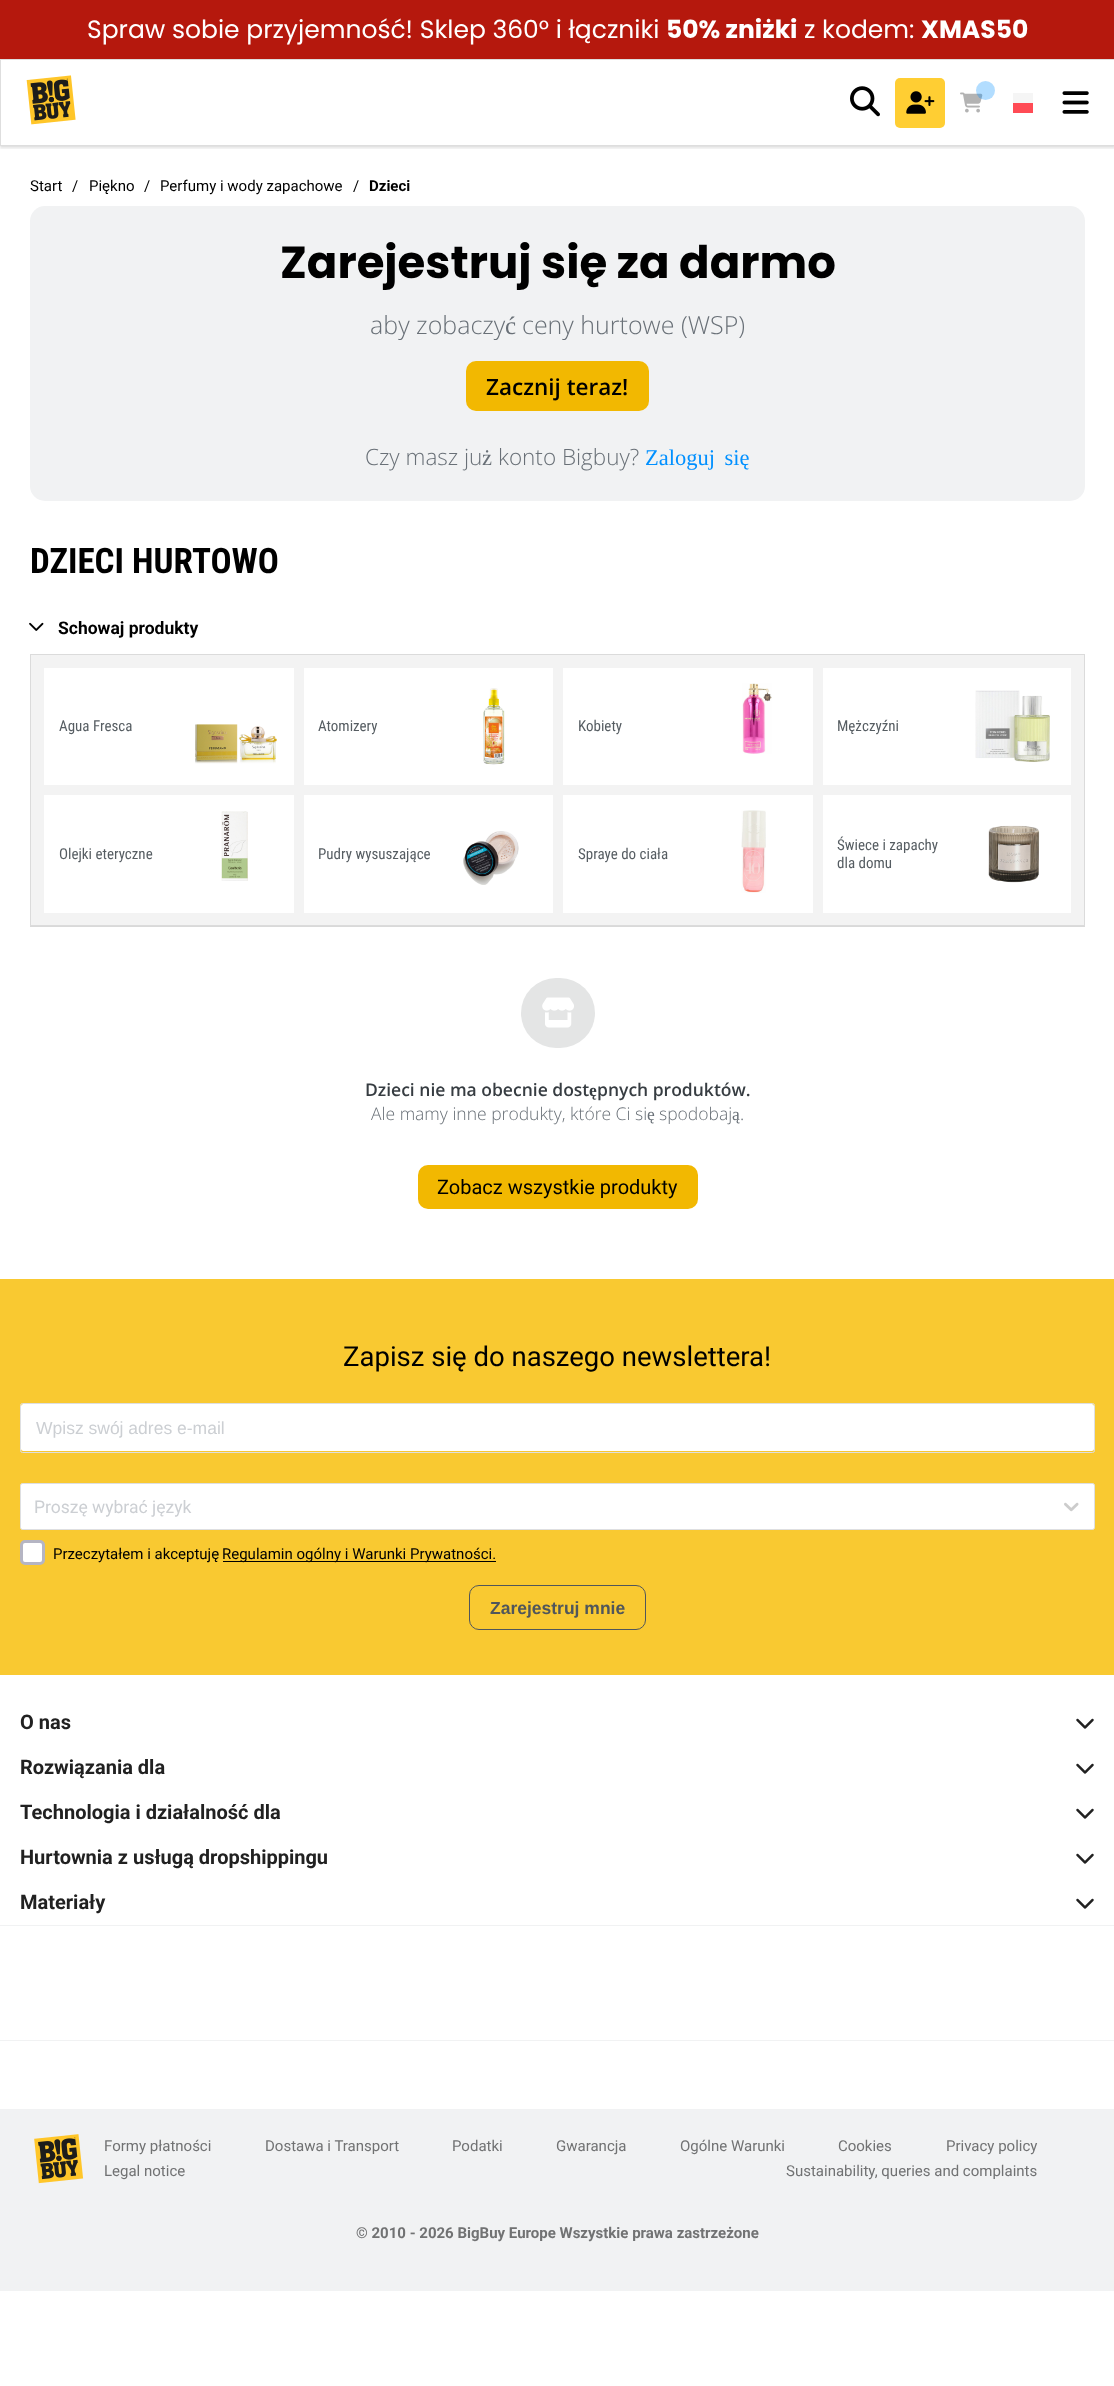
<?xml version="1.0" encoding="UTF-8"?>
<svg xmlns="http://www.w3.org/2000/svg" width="1114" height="2386">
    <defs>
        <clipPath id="clip1"><rect x="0" y="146" width="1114" height="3"/></clipPath>
        <filter id="blur1" x="-50%" y="-200%" width="200%" height="500%"><feGaussianBlur stdDeviation="1"/></filter>
    </defs>
    <rect width="100%" height="100%" fill="#FFFFFF"/>
    <rect x="0" y="0" width="1114" height="59" fill="#B5180D"/>
    <text x="87" y="38" font-family="Poppins" font-size="25" fill="#FFFFFF">Spraw sobie przyjemność! Sklep 360° i łączniki</text>
    <text x="666" y="38" font-family="Poppins" font-size="25" font-weight="700" fill="#FFFFFF">50% zniżki</text>
    <text x="804" y="38" font-family="Poppins" font-size="25" fill="#FFFFFF">z kodem:</text>
    <text x="921" y="38" font-family="Poppins" font-size="25" font-weight="700" fill="#FFFFFF">XMAS50</text>
    <g clip-path="url(#clip1)">
        <rect x="0" y="60" width="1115" height="88" fill="#222426" fill-opacity="0.15" filter="url(#blur1)"/>
    </g>
    <rect x="0.5" y="59.5" width="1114" height="86" fill="none" stroke="#DEDEDE"/>
    <image x="26" y="75" width="50" height="50" href="img_01.png"/>
    <image x="850" y="86" width="30" height="31" href="img_02.png"/>
    <rect x="895" y="78" width="50" height="50" rx="5" fill="#FFCE33"/>
    <image x="906" y="91" width="29" height="23" href="img_03.png"/>
    <image x="960" y="92" width="23" height="21" href="img_04.png"/>
    <circle cx="985.5" cy="90.5" r="9.5" fill="#0090FF" fill-opacity="0.3"/>
    <rect x="1013" y="103" width="20" height="10" fill="#FF4B55"/>
    <rect x="1013" y="93" width="20" height="10" fill="#F5F5F5"/>
    <image x="1062" y="91" width="27" height="23" href="img_05.png"/>
    <text x="30" y="191" font-family="Roboto" font-size="15" fill="#000000">Start</text>
    <text x="72" y="191" font-family="Roboto" font-size="15" fill="#000000">/</text>
    <text x="89" y="191" font-family="Roboto" font-size="15" fill="#000000">Piękno</text>
    <text x="144" y="191" font-family="Roboto" font-size="15" fill="#000000">/</text>
    <text x="160" y="191" font-family="Roboto" font-size="15" fill="#000000">Perfumy i wody zapachowe</text>
    <text x="353" y="191" font-family="Roboto" font-size="15" fill="#000000">/</text>
    <text x="369" y="191" font-family="Roboto" font-size="15" font-weight="700" fill="#000000">Dzieci</text>
    <rect x="30" y="206" width="1055" height="295" rx="15" fill="#F1F2F3"/>
    <text x="280" y="278" font-family="Poppins" font-size="45" font-weight="700" fill="#000000">Zarejestruj się za darmo</text>
    <text x="370" y="334" font-family="Open Sans" font-size="25" font-weight="300" fill="#697077">aby zobaczy</text>
    <text x="505" y="334" font-family="Liberation Serif" font-size="25" fill="#697077">ć</text>
    <text x="522" y="334" font-family="Open Sans" font-size="25" font-weight="300" fill="#697077">ceny hurtowe (WSP)</text>
    <rect x="466" y="361" width="183" height="50" rx="10" fill="#F2B801"/>
    <text x="486" y="395" font-family="Open Sans" font-size="22.5" font-weight="600" fill="#000000">Zacznij teraz!</text>
    <text x="365" y="465" font-family="Open Sans" font-size="22.5" font-weight="300" fill="#697077">Czy masz ju</text>
    <text x="482" y="465" font-family="Liberation Serif" font-size="22.5" fill="#697077">ż</text>
    <text x="498" y="465" font-family="Open Sans" font-size="22.5" font-weight="300" fill="#697077">konto Bigbuy?</text>
    <text x="645" y="465" word-spacing="4" font-family="Liberation Serif" font-size="22.5" fill="#0090FF">Zaloguj się</text>
    <rect x="30" y="926" width="1055" height="1" fill="#D9D9D9"/>
    <text x="30" y="573" font-family="Roboto Condensed" font-size="35" font-weight="700" fill="#000000">DZIECI HURTOWO</text>
    <image x="29" y="622" width="15" height="9" href="img_06.png"/>
    <text x="58" y="634" font-family="Roboto" font-size="17.5" font-weight="700" fill="#000000">Schowaj produkty</text>
    <rect x="30.5" y="654.5" width="1054" height="271" fill="#F3F3F3" stroke="#DBDBDB"/>
    <rect x="44" y="668" width="250" height="117" fill="#FFFFFF"/>
    <text x="59" y="731" font-family="Roboto Condensed" font-size="15" fill="#565D62">Agua Fresca</text>
    <image x="195" y="724" width="82" height="40" href="img_07.png"/>
    <rect x="304" y="668" width="249" height="117" fill="#FFFFFF"/>
    <text x="318" y="731" font-family="Roboto Condensed" font-size="15" fill="#565D62">Atomizery</text>
    <image x="483" y="688" width="22" height="77" href="img_08.png"/>
    <rect x="563" y="668" width="250" height="117" fill="#FFFFFF"/>
    <text x="578" y="731" font-family="Roboto Condensed" font-size="15" fill="#565D62">Kobiety</text>
    <image x="742" y="683" width="30" height="71" href="img_09.png"/>
    <rect x="823" y="668" width="248" height="117" fill="#FFFFFF"/>
    <text x="837" y="731" font-family="Roboto Condensed" font-size="15" fill="#565D62">Mężczyźni</text>
    <image x="975" y="690" width="75" height="72" href="img_10.png"/>
    <rect x="44" y="795" width="250" height="118" fill="#FFFFFF"/>
    <text x="59" y="859" font-family="Roboto Condensed" font-size="15" fill="#565D62">Olejki eteryczne</text>
    <image x="221" y="811" width="27" height="70" href="img_11.png"/>
    <rect x="304" y="795" width="249" height="118" fill="#FFFFFF"/>
    <text x="318" y="859" font-family="Roboto Condensed" font-size="15" fill="#565D62">Pudry wysuszające</text>
    <image x="463" y="831" width="56" height="54" href="img_12.png"/>
    <rect x="563" y="795" width="250" height="118" fill="#FFFFFF"/>
    <text x="578" y="859" font-family="Roboto Condensed" font-size="15" fill="#565D62">Spraye do ciała</text>
    <image x="741" y="810" width="25" height="83" href="img_13.png"/>
    <rect x="823" y="795" width="248" height="118" fill="#FFFFFF"/>
    <text font-family="Roboto Condensed" font-size="15" fill="#565D62">
        <tspan x="837" y="850">Świece i zapachy</tspan>
        <tspan x="837" y="868">dla domu</tspan>
    </text>
    <image x="988" y="825" width="52" height="58" href="img_14.png"/>
    <rect x="521" y="978" width="74" height="70" rx="35" fill="#E4E5E5"/>
    <image x="542" y="997" width="32" height="31" href="img_15.png"/>
    <text x="365" y="1096" font-family="Open Sans" font-size="17.5" font-weight="600" fill="#373D42">Dzieci nie ma obecnie dost</text>
    <text x="589" y="1096" font-family="Liberation Serif" font-size="17.5" font-weight="700" fill="#373D42">ę</text>
    <text x="597" y="1096" font-family="Open Sans" font-size="17.5" font-weight="600" fill="#373D42">pnych produktów.</text>
    <text x="371" y="1120" font-family="Open Sans" font-size="17.5" font-weight="300" fill="#697077">Ale mamy inne produkty, które Ci si</text>
    <text x="647" y="1120" font-family="Liberation Serif" font-size="17.5" fill="#697077">ę</text>
    <text x="659" y="1120" font-family="Open Sans" font-size="17.5" font-weight="300" fill="#697077">spodobaj</text>
    <text x="732" y="1120" font-family="Liberation Serif" font-size="17.5" fill="#697077">ą</text>
    <text x="740" y="1120" font-family="Open Sans" font-size="17.5" font-weight="300" fill="#697077">.</text>
    <rect x="418" y="1165" width="280" height="44" rx="10" fill="#F2B801"/>
    <text x="437" y="1194" font-family="Roboto" font-size="20" fill="#000000">Zobacz wszystkie produkty</text>
    <rect x="0" y="1279" width="1114" height="396" fill="#F9C931"/>
    <text x="343" y="1366" font-family="Roboto" font-size="27.5" fill="#000000">Zapisz się do naszego newslettera!</text>
    <rect x="20.5" y="1403.5" width="1074" height="49" rx="2" fill="none" stroke="#DEDFE1"/>
    <rect x="21" y="1404" width="1073" height="47" rx="2.5" fill="#FFFFFF"/>
    <text x="36" y="1434" font-family="Liberation Sans" font-size="17.5" fill="#CCCFD3">Wpisz swój adres e-mail</text>
    <rect x="20.5" y="1483.5" width="1074" height="46" rx="2" fill="#FFFFFF" stroke="#DEDFE1"/>
    <text x="34" y="1513" font-family="Roboto" font-size="17.5" fill="#CCCFD3">Proszę wybrać język</text>
    <image x="1064" y="1502" width="15" height="10" href="img_16.png"/>
    <rect x="21.5" y="1541.5" width="22" height="22" rx="3.5" fill="#FFFFFF" stroke="#B5B5C3" stroke-width="3"/>
    <text x="53" y="1559" font-family="Roboto" font-size="15" fill="#000000">Przeczytałem i akceptuję</text>
    <rect x="223" y="1561" width="273" height="1" fill="#000000"/>
    <text x="222" y="1559" font-family="Roboto" font-size="15" fill="#000000">Regulamin ogólny i Warunki Prywatności.</text>
    <rect x="469.5" y="1585.5" width="176" height="44" rx="9.5" fill="none" stroke="#50565B"/>
    <text x="490" y="1614" font-family="Liberation Sans" font-size="17.5" font-weight="700" fill="#50565B">Zarejestruj mnie</text>
    <text x="20" y="1729" font-family="Roboto" font-size="20" font-weight="700" fill="#212121">O nas</text>
    <image x="1076" y="1718" width="18" height="11" href="img_17.png"/>
    <text x="20" y="1774" font-family="Roboto" font-size="20" font-weight="700" fill="#212121">Rozwiązania dla</text>
    <image x="1076" y="1763" width="18" height="11" href="img_17.png"/>
    <text x="20" y="1819" font-family="Roboto" font-size="20" font-weight="700" fill="#212121">Technologia i działalność dla</text>
    <image x="1076" y="1808" width="18" height="11" href="img_17.png"/>
    <text x="20" y="1864" font-family="Roboto" font-size="20" font-weight="700" fill="#212121">Hurtownia z usługą dropshippingu</text>
    <image x="1076" y="1853" width="18" height="11" href="img_17.png"/>
    <text x="20" y="1909" font-family="Roboto" font-size="20" font-weight="700" fill="#212121">Materiały</text>
    <image x="1076" y="1898" width="18" height="11" href="img_17.png"/>
    <rect x="0" y="1925" width="1114" height="1" fill="#F1F2F3"/>
    <rect x="0" y="2040" width="1114" height="1" fill="#F1F2F3"/>
    <rect x="0" y="2109" width="1114" height="182" fill="#F1F2F3"/>
    <image x="34" y="2134" width="50" height="50" href="img_18.png"/>
    <text x="104" y="2151" font-family="Roboto" font-size="15" fill="#717273">Formy płatności</text>
    <text x="265" y="2151" font-family="Roboto" font-size="15" fill="#717273">Dostawa i Transport</text>
    <text x="452" y="2151" font-family="Roboto" font-size="15" fill="#717273">Podatki</text>
    <text x="556" y="2151" font-family="Roboto" font-size="15" fill="#717273">Gwarancja</text>
    <text x="680" y="2151" font-family="Roboto" font-size="15" fill="#717273">Ogólne Warunki</text>
    <text x="838" y="2151" font-family="Roboto" font-size="15" fill="#717273">Cookies</text>
    <text x="946" y="2151" font-family="Roboto" font-size="15" fill="#717273">Privacy policy</text>
    <text x="104" y="2176" font-family="Roboto" font-size="15" fill="#717273">Legal notice</text>
    <text x="786" y="2176" font-family="Roboto" font-size="15" fill="#717273">Sustainability, queries and complaints</text>
    <text x="356" y="2238" font-family="Roboto" font-size="15" font-weight="700" fill="#717273">© 2010 - 2026 BigBuy Europe Wszystkie prawa zastrzeżone</text>
</svg>
